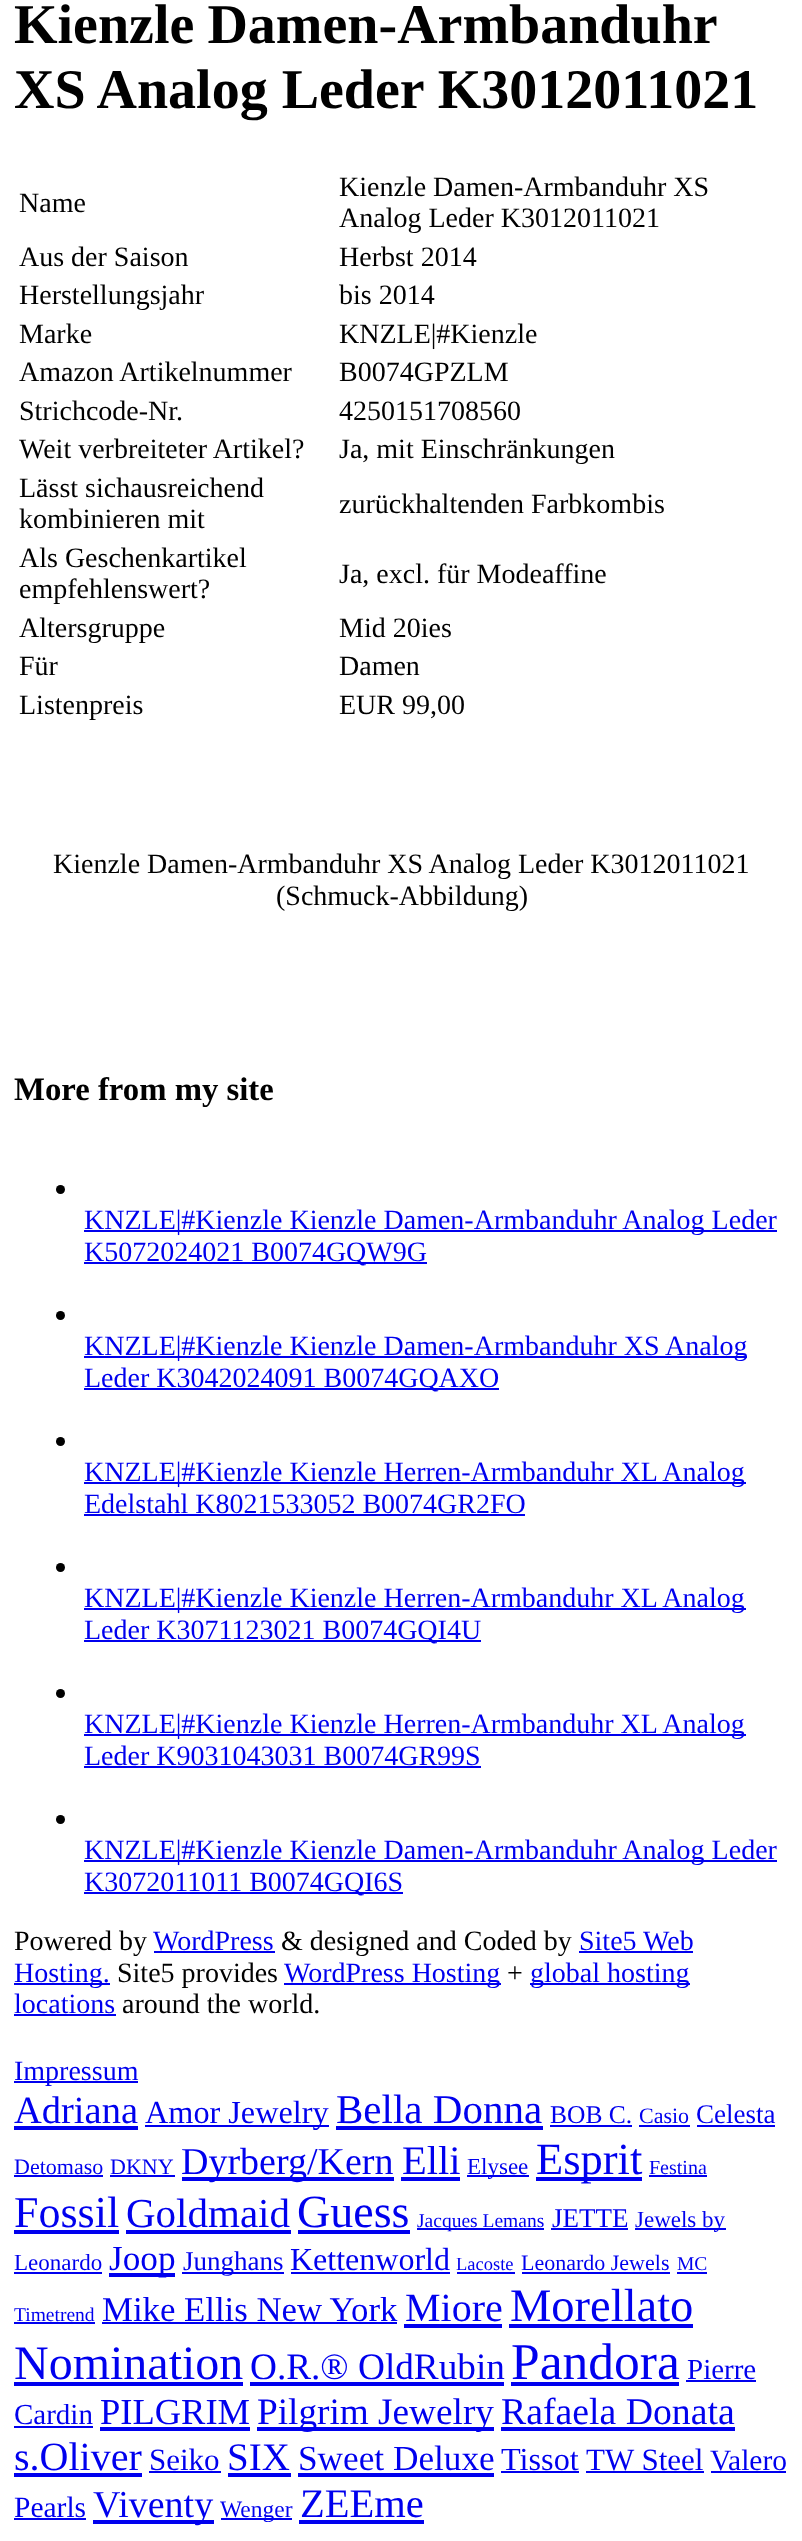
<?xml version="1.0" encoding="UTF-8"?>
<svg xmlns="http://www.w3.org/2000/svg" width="802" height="2541">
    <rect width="100%" height="100%" fill="#FFFFFF"/>
    <text font-family="Liberation Serif" font-size="56" font-weight="700" fill="#000000">
        <tspan x="14" y="43" word-spacing="-1">Kienzle Damen-Armbanduhr</tspan>
        <tspan x="14" y="108">XS Analog Leder K3012011021</tspan>
    </text>
    <text x="19" y="212" font-family="Liberation Serif" font-size="28" fill="#000000">Name</text>
    <text font-family="Liberation Serif" font-size="28" fill="#000000">
        <tspan x="339" y="196">Kienzle Damen-Armbanduhr XS</tspan>
        <tspan x="339" y="227">Analog Leder K3012011021</tspan>
    </text>
    <text x="19" y="266" font-family="Liberation Serif" font-size="28" fill="#000000">Aus der Saison</text>
    <text x="339" y="266" font-family="Liberation Serif" font-size="28" fill="#000000">Herbst 2014</text>
    <text x="19" y="304" font-family="Liberation Serif" font-size="28" fill="#000000">Herstellungsjahr</text>
    <text x="339" y="304" font-family="Liberation Serif" font-size="28" fill="#000000">bis 2014</text>
    <text x="19" y="343" font-family="Liberation Serif" font-size="28" fill="#000000">Marke</text>
    <text x="339" y="343" font-family="Liberation Serif" font-size="28" fill="#000000">KNZLE|#Kienzle</text>
    <text x="19" y="381" font-family="Liberation Serif" font-size="28" fill="#000000">Amazon Artikelnummer</text>
    <text x="339" y="381" font-family="Liberation Serif" font-size="28" fill="#000000">B0074GPZLM</text>
    <text x="19" y="420" font-family="Liberation Serif" font-size="28" fill="#000000">Strichcode-Nr.</text>
    <text x="339" y="420" font-family="Liberation Serif" font-size="28" fill="#000000">4250151708560</text>
    <text x="19" y="458" font-family="Liberation Serif" font-size="28" fill="#000000">Weit verbreiteter Artikel?</text>
    <text x="339" y="458" font-family="Liberation Serif" font-size="28" fill="#000000">Ja, mit Einschränkungen</text>
    <text font-family="Liberation Serif" font-size="28" fill="#000000">
        <tspan x="19" y="497">Lässt sichausreichend</tspan>
        <tspan x="19" y="528">kombinieren mit</tspan>
    </text>
    <text x="339" y="513" font-family="Liberation Serif" font-size="28" fill="#000000">zurückhaltenden Farbkombis</text>
    <text font-family="Liberation Serif" font-size="28" fill="#000000">
        <tspan x="19" y="567">Als Geschenkartikel</tspan>
        <tspan x="19" y="598">empfehlenswert?</tspan>
    </text>
    <text x="339" y="583" font-family="Liberation Serif" font-size="28" fill="#000000">Ja, excl. für Modeaffine</text>
    <text x="19" y="637" font-family="Liberation Serif" font-size="28" fill="#000000">Altersgruppe</text>
    <text x="339" y="637" font-family="Liberation Serif" font-size="28" fill="#000000">Mid 20ies</text>
    <text x="19" y="675" font-family="Liberation Serif" font-size="28" fill="#000000">Für</text>
    <text x="339" y="675" font-family="Liberation Serif" font-size="28" fill="#000000">Damen</text>
    <text x="19" y="714" font-family="Liberation Serif" font-size="28" fill="#000000">Listenpreis</text>
    <text x="339" y="714" font-family="Liberation Serif" font-size="28" fill="#000000">EUR 99,00</text>
    <text x="53" y="873" font-family="Liberation Serif" font-size="28" fill="#000000">Kienzle Damen-Armbanduhr XS Analog Leder K3012011021</text>
    <text x="276" y="905" font-family="Liberation Serif" font-size="28" fill="#000000">(Schmuck-Abbildung)</text>
    <text x="14" y="1100" font-family="Liberation Serif" font-size="32.75" font-weight="700" fill="#000000">More from my site</text>
    <circle cx="60.5" cy="1189.5" r="4.5" fill="#000000"/>
    <rect x="84" y="1230" width="693" height="2" fill="#0000EE"/>
    <text x="84" y="1229" font-family="Liberation Serif" font-size="28" fill="#0000EE">KNZLE|#Kienzle Kienzle Damen-Armbanduhr Analog Leder</text>
    <rect x="84" y="1262" width="343" height="2" fill="#0000EE"/>
    <text x="84" y="1261" font-family="Liberation Serif" font-size="28" fill="#0000EE">K5072024021 B0074GQW9G</text>
    <circle cx="60.5" cy="1315.5" r="4.5" fill="#000000"/>
    <rect x="84" y="1356" width="663" height="2" fill="#0000EE"/>
    <text x="84" y="1355" font-family="Liberation Serif" font-size="28" fill="#0000EE">KNZLE|#Kienzle Kienzle Damen-Armbanduhr XS Analog</text>
    <rect x="84" y="1388" width="415" height="2" fill="#0000EE"/>
    <text x="84" y="1387" font-family="Liberation Serif" font-size="28" fill="#0000EE">Leder K3042024091 B0074GQAXO</text>
    <circle cx="60.5" cy="1441.5" r="4.5" fill="#000000"/>
    <rect x="84" y="1482" width="662" height="2" fill="#0000EE"/>
    <text font-family="Liberation Serif" font-size="28" fill="#0000EE">
        <tspan x="84" y="1481">KNZLE|#Kienzle Kienzle Herren-Armbanduhr XL Analog</tspan>
        <tspan x="84" y="1513">Edelstahl K8021533052 B0074GR2FO</tspan>
    </text>
    <rect x="84" y="1514" width="441" height="2" fill="#0000EE"/>
    <circle cx="60.5" cy="1567.5" r="4.5" fill="#000000"/>
    <rect x="84" y="1608" width="662" height="2" fill="#0000EE"/>
    <text x="84" y="1607" font-family="Liberation Serif" font-size="28" fill="#0000EE">KNZLE|#Kienzle Kienzle Herren-Armbanduhr XL Analog</text>
    <rect x="84" y="1640" width="397" height="2" fill="#0000EE"/>
    <text x="84" y="1639" font-family="Liberation Serif" font-size="28" fill="#0000EE">Leder K3071123021 B0074GQI4U</text>
    <circle cx="60.5" cy="1693.5" r="4.5" fill="#000000"/>
    <rect x="84" y="1734" width="662" height="2" fill="#0000EE"/>
    <text font-family="Liberation Serif" font-size="28" fill="#0000EE">
        <tspan x="84" y="1733">KNZLE|#Kienzle Kienzle Herren-Armbanduhr XL Analog</tspan>
        <tspan x="84" y="1765">Leder K9031043031 B0074GR99S</tspan>
    </text>
    <rect x="84" y="1766" width="397" height="2" fill="#0000EE"/>
    <circle cx="60.5" cy="1819.5" r="4.5" fill="#000000"/>
    <rect x="84" y="1860" width="693" height="2" fill="#0000EE"/>
    <text x="84" y="1859" font-family="Liberation Serif" font-size="28" fill="#0000EE">KNZLE|#Kienzle Kienzle Damen-Armbanduhr Analog Leder</text>
    <rect x="84" y="1892" width="319" height="2" fill="#0000EE"/>
    <text x="84" y="1891" font-family="Liberation Serif" font-size="28" fill="#0000EE">K3072011011 B0074GQI6S</text>
    <text x="14" y="1950" font-family="Liberation Serif" font-size="28" fill="#000000">Powered by</text>
    <text x="153" y="1950" font-family="Liberation Serif" font-size="28" fill="#0000EE">WordPress</text>
    <rect x="154" y="1951" width="121" height="2" fill="#0000EE"/>
    <text x="281" y="1950" font-family="Liberation Serif" font-size="28" fill="#000000">&amp; designed and Coded by</text>
    <text x="579" y="1950" font-family="Liberation Serif" font-size="28" fill="#0000EE">Site5 Web</text>
    <rect x="579" y="1951" width="114" height="2" fill="#0000EE"/>
    <rect x="14" y="1983" width="96" height="2" fill="#0000EE"/>
    <text x="14" y="1982" font-family="Liberation Serif" font-size="28" fill="#0000EE">Hosting.</text>
    <text x="117" y="1982" font-family="Liberation Serif" font-size="28" fill="#000000">Site5 provides</text>
    <rect x="284" y="1983" width="217" height="2" fill="#0000EE"/>
    <text x="284" y="1982" font-family="Liberation Serif" font-size="28" fill="#0000EE">WordPress Hosting</text>
    <text x="507" y="1982" font-family="Liberation Serif" font-size="28" fill="#000000">+</text>
    <rect x="530" y="1983" width="160" height="2" fill="#0000EE"/>
    <text x="530" y="1982" font-family="Liberation Serif" font-size="28" fill="#0000EE">global hosting</text>
    <text x="14" y="2013" font-family="Liberation Serif" font-size="28" fill="#0000EE">locations</text>
    <rect x="14" y="2014" width="102" height="2" fill="#0000EE"/>
    <text x="122" y="2013" font-family="Liberation Serif" font-size="28" fill="#000000">around the world.</text>
    <rect x="14" y="2081" width="124" height="2" fill="#0000EE"/>
    <text x="14" y="2080" font-family="Liberation Serif" font-size="28" fill="#0000EE">Impressum</text>
    <text x="14" y="2123" font-family="Liberation Serif" font-size="38.5" fill="#0000EE">Adriana</text>
    <rect x="14" y="2126" width="124" height="4" fill="#0000EE"/>
    <rect x="145" y="2125" width="184" height="2" fill="#0000EE"/>
    <text x="145" y="2123" font-family="Liberation Serif" font-size="32.25" fill="#0000EE">Amor Jewelry</text>
    <text x="336" y="2123" font-family="Liberation Serif" font-size="41" fill="#0000EE">Bella Donna</text>
    <rect x="336" y="2126" width="207" height="4" fill="#0000EE"/>
    <text x="550" y="2123" font-family="Liberation Serif" font-size="25.5" fill="#0000EE">BOB C.</text>
    <rect x="550" y="2125" width="82" height="2" fill="#0000EE"/>
    <text x="639" y="2123" font-family="Liberation Serif" font-size="22" fill="#0000EE">Casio</text>
    <rect x="639" y="2125" width="51" height="2" fill="#0000EE"/>
    <text x="696" y="2123" font-family="Liberation Serif" font-size="27" fill="#0000EE">Celesta</text>
    <rect x="697" y="2125" width="78" height="2" fill="#0000EE"/>
    <text x="14" y="2174" font-family="Liberation Serif" font-size="22" fill="#0000EE">Detomaso</text>
    <rect x="14" y="2175" width="89" height="2" fill="#0000EE"/>
    <text x="110" y="2174" font-family="Liberation Serif" font-size="22" fill="#0000EE">DKNY</text>
    <rect x="110" y="2175" width="65" height="2" fill="#0000EE"/>
    <rect x="182" y="2177" width="212" height="4" fill="#0000EE"/>
    <text x="181" y="2174" font-family="Liberation Serif" font-size="38" fill="#0000EE">Dyrberg/Kern</text>
    <text x="402" y="2174" font-family="Liberation Serif" font-size="40.5" fill="#0000EE">Elli</text>
    <rect x="401" y="2177" width="59" height="4" fill="#0000EE"/>
    <rect x="467" y="2175" width="62" height="2" fill="#0000EE"/>
    <text x="467" y="2174" font-family="Liberation Serif" font-size="23" fill="#0000EE">Elysee</text>
    <rect x="536" y="2177" width="106" height="4" fill="#0000EE"/>
    <text x="536" y="2174" font-family="Liberation Serif" font-size="44.5" fill="#0000EE">Esprit</text>
    <text x="649" y="2174" font-family="Liberation Serif" font-size="20" fill="#0000EE">Festina</text>
    <rect x="649" y="2175" width="58" height="2" fill="#0000EE"/>
    <text x="14" y="2227" font-family="Liberation Serif" font-size="44" fill="#0000EE">Fossil</text>
    <rect x="14" y="2230" width="105" height="4" fill="#0000EE"/>
    <text x="126" y="2227" font-family="Liberation Serif" font-size="41" fill="#0000EE">Goldmaid</text>
    <rect x="126" y="2230" width="165" height="4" fill="#0000EE"/>
    <text x="297" y="2227" font-family="Liberation Serif" font-size="46" fill="#0000EE">Guess</text>
    <rect x="298" y="2230" width="112" height="4" fill="#0000EE"/>
    <rect x="417" y="2228" width="127" height="2" fill="#0000EE"/>
    <text x="417" y="2227" font-family="Liberation Serif" font-size="19.5" fill="#0000EE">Jacques Lemans</text>
    <text x="552" y="2227" font-family="Liberation Serif" font-size="27" fill="#0000EE">JETTE</text>
    <rect x="551" y="2228" width="77" height="2" fill="#0000EE"/>
    <rect x="635" y="2228" width="91" height="2" fill="#0000EE"/>
    <text x="635" y="2227" font-family="Liberation Serif" font-size="23" fill="#0000EE">Jewels by</text>
    <text x="14" y="2270" font-family="Liberation Serif" font-size="23" fill="#0000EE">Leonardo</text>
    <rect x="14" y="2272" width="88" height="2" fill="#0000EE"/>
    <rect x="109" y="2273" width="66" height="4" fill="#0000EE"/>
    <text x="109" y="2270" font-family="Liberation Serif" font-size="35.25" fill="#0000EE">Joop</text>
    <rect x="182" y="2272" width="102" height="2" fill="#0000EE"/>
    <text x="183" y="2270" font-family="Liberation Serif" font-size="27" fill="#0000EE">Junghans</text>
    <text x="290" y="2270" font-family="Liberation Serif" font-size="32" fill="#0000EE">Kettenworld</text>
    <rect x="291" y="2272" width="159" height="2" fill="#0000EE"/>
    <text x="456" y="2270" font-family="Liberation Serif" font-size="18.5" fill="#0000EE">Lacoste</text>
    <rect x="457" y="2272" width="58" height="2" fill="#0000EE"/>
    <text x="521" y="2270" font-family="Liberation Serif" font-size="22" fill="#0000EE">Leonardo Jewels</text>
    <rect x="522" y="2272" width="148" height="2" fill="#0000EE"/>
    <text x="677" y="2270" font-family="Liberation Serif" font-size="19.5" fill="#0000EE">MC</text>
    <rect x="677" y="2272" width="30" height="2" fill="#0000EE"/>
    <text x="14" y="2321" font-family="Liberation Serif" font-size="19.5" fill="#0000EE">Timetrend</text>
    <rect x="14" y="2322" width="81" height="2" fill="#0000EE"/>
    <text x="102" y="2321" font-family="Liberation Serif" font-size="34.75" fill="#0000EE">Mike Ellis New York</text>
    <rect x="102" y="2322" width="295" height="2" fill="#0000EE"/>
    <text x="405" y="2321" font-family="Liberation Serif" font-size="40" fill="#0000EE">Miore</text>
    <rect x="404" y="2324" width="98" height="4" fill="#0000EE"/>
    <text x="510" y="2321" font-family="Liberation Serif" font-size="46.5" fill="#0000EE">Morellato</text>
    <rect x="509" y="2324" width="184" height="4" fill="#0000EE"/>
    <text x="14" y="2379" font-family="Liberation Serif" font-size="48" fill="#0000EE">Nomination</text>
    <rect x="14" y="2382" width="229" height="4" fill="#0000EE"/>
    <text x="250" y="2379" font-family="Liberation Serif" font-size="37.25" fill="#0000EE">O.R.® OldRubin</text>
    <rect x="250" y="2382" width="254" height="4" fill="#0000EE"/>
    <text x="511" y="2379" font-family="Liberation Serif" font-size="51.5" fill="#0000EE">Pandora</text>
    <rect x="511" y="2382" width="168" height="4" fill="#0000EE"/>
    <text x="687" y="2379" font-family="Liberation Serif" font-size="29" fill="#0000EE">Pierre</text>
    <rect x="686" y="2380" width="70" height="2" fill="#0000EE"/>
    <text x="14" y="2424" font-family="Liberation Serif" font-size="29" fill="#0000EE">Cardin</text>
    <rect x="14" y="2426" width="79" height="2" fill="#0000EE"/>
    <text x="100" y="2424" font-family="Liberation Serif" font-size="36.5" fill="#0000EE">PILGRIM</text>
    <rect x="100" y="2427" width="150" height="4" fill="#0000EE"/>
    <rect x="257" y="2427" width="237" height="4" fill="#0000EE"/>
    <text x="257" y="2424" font-family="Liberation Serif" font-size="37.25" fill="#0000EE">Pilgrim Jewelry</text>
    <text x="501" y="2424" font-family="Liberation Serif" font-size="37.75" fill="#0000EE">Rafaela Donata</text>
    <rect x="501" y="2427" width="234" height="4" fill="#0000EE"/>
    <text x="14" y="2470" font-family="Liberation Serif" font-size="40" fill="#0000EE">s.Oliver</text>
    <rect x="14" y="2473" width="128" height="4" fill="#0000EE"/>
    <text x="149" y="2470" font-family="Liberation Serif" font-size="31" fill="#0000EE">Seiko</text>
    <rect x="149" y="2471" width="72" height="2" fill="#0000EE"/>
    <text x="227" y="2470" font-family="Liberation Serif" font-size="39" fill="#0000EE">SIX</text>
    <rect x="228" y="2473" width="63" height="4" fill="#0000EE"/>
    <text x="298" y="2470" font-family="Liberation Serif" font-size="35.25" fill="#0000EE">Sweet Deluxe</text>
    <rect x="298" y="2473" width="196" height="4" fill="#0000EE"/>
    <text x="501" y="2470" font-family="Liberation Serif" font-size="32.25" fill="#0000EE">Tissot</text>
    <rect x="501" y="2471" width="78" height="2" fill="#0000EE"/>
    <text x="586" y="2470" font-family="Liberation Serif" font-size="31" fill="#0000EE">TW Steel</text>
    <rect x="586" y="2471" width="118" height="2" fill="#0000EE"/>
    <text x="710" y="2470" font-family="Liberation Serif" font-size="29.5" fill="#0000EE">Valero</text>
    <rect x="711" y="2471" width="75" height="2" fill="#0000EE"/>
    <text x="14" y="2517" font-family="Liberation Serif" font-size="29.5" fill="#0000EE">Pearls</text>
    <rect x="14" y="2518" width="72" height="2" fill="#0000EE"/>
    <rect x="93" y="2520" width="121" height="4" fill="#0000EE"/>
    <text x="93" y="2517" font-family="Liberation Serif" font-size="38" fill="#0000EE">Viventy</text>
    <rect x="221" y="2518" width="71" height="2" fill="#0000EE"/>
    <text x="220" y="2517" font-family="Liberation Serif" font-size="23.5" fill="#0000EE">Wenger</text>
    <text x="300" y="2517" font-family="Liberation Serif" font-size="40.5" fill="#0000EE">ZEEme</text>
    <rect x="299" y="2520" width="125" height="4" fill="#0000EE"/>
</svg>
